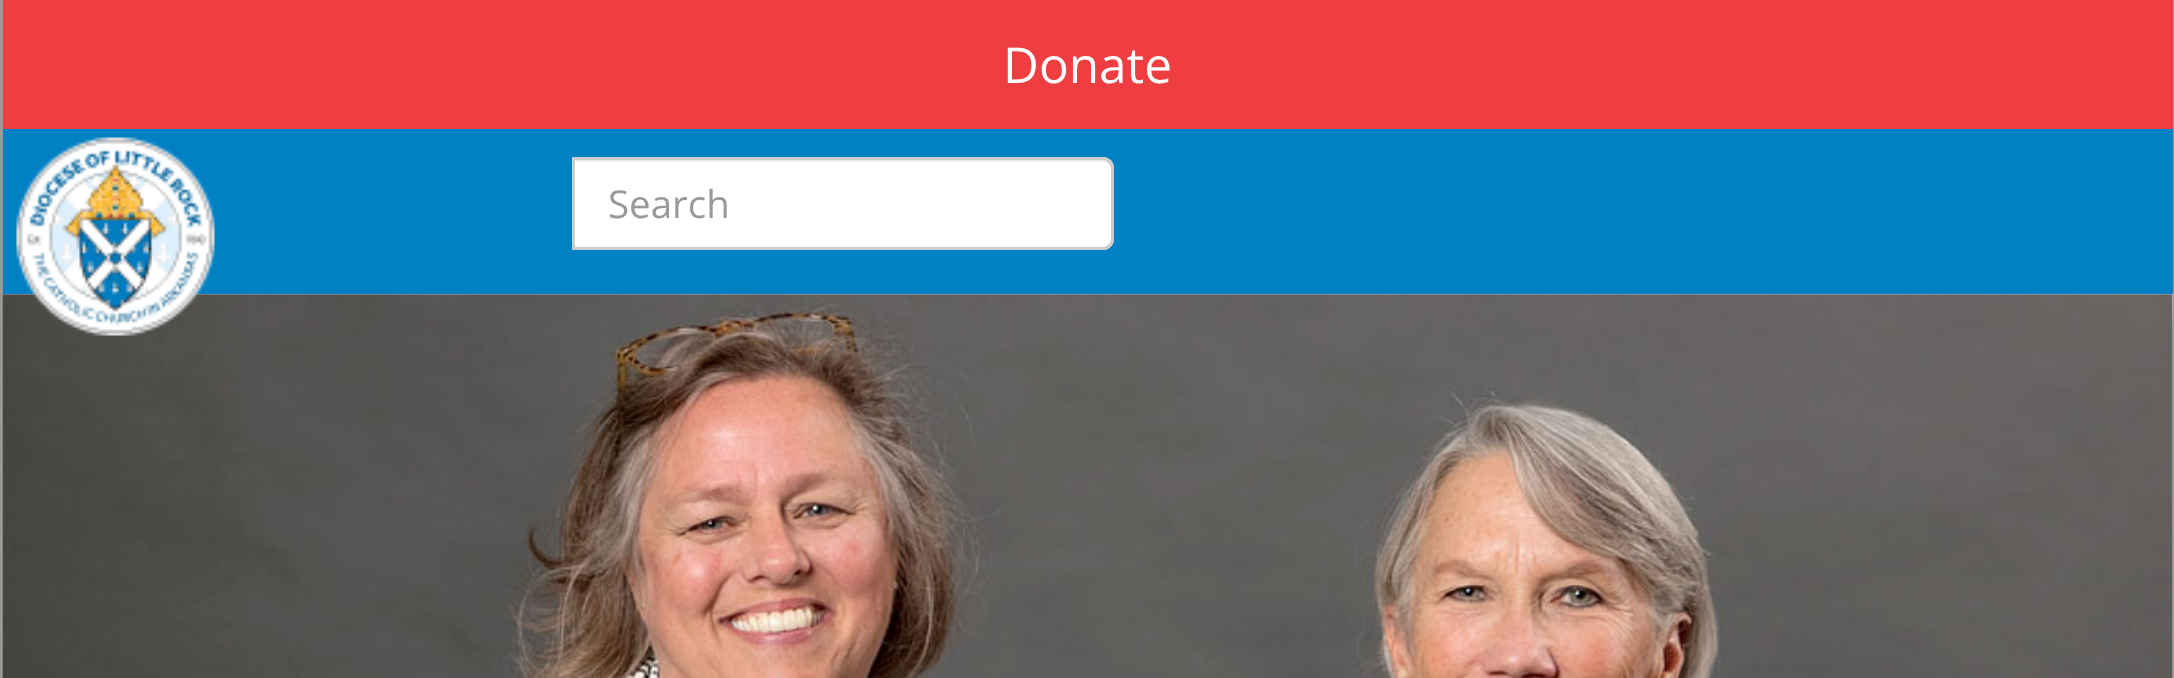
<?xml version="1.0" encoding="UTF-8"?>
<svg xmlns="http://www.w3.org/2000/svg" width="2174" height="678">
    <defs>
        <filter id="blur1" x="-50%" y="-200%" width="200%" height="500%"><feGaussianBlur stdDeviation="11"/></filter>
    </defs>
    <rect width="100%" height="100%" fill="#FFFFFF"/>
    <rect x="2173" y="0" width="1" height="678" fill="#999999"/>
    <rect x="0" y="0" width="3" height="678" fill="#999999"/>
    <rect x="3" y="0" width="2170" height="129" fill="#EF3E42"/>
    <text x="1003" y="83" font-family="Open Sans" font-size="49.5" fill="#FFFFFF">Donate</text>
    <rect x="3" y="129" width="2170" height="165" fill="#0081C4"/>
    <rect x="3" y="316" width="2170" height="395" fill="#999999" filter="url(#blur1)"/>
    <image x="2" y="294" width="2171" height="384" href="img_02.png"/>
    <image x="16" y="137" width="199" height="199" href="img_01.png"/>
    <path d="M 572 157 H 1103 C 1109 157 1114 162 1114 168 V 239 C 1114 245 1109 250 1103 250 H 572 Z" fill="#FFFFFF"/>
    <path d="M 575 162 H 1103 C 1107 162 1111 166 1111 170 C 1111 165 1109 160 1103 160 H 575 Z" fill="#ECECEC"/>
    <path d="M 573.5 158.5 H 1103 C 1108 158.5 1112.5 163 1112.5 168 V 239 C 1112.5 244 1108 248.5 1103 248.5 H 573.5 Z" fill="none" stroke="#CCCCCC" stroke-width="3"/>
    <text x="608" y="218" font-family="Open Sans" font-size="38.5" fill="#999999">Search</text>
</svg>
